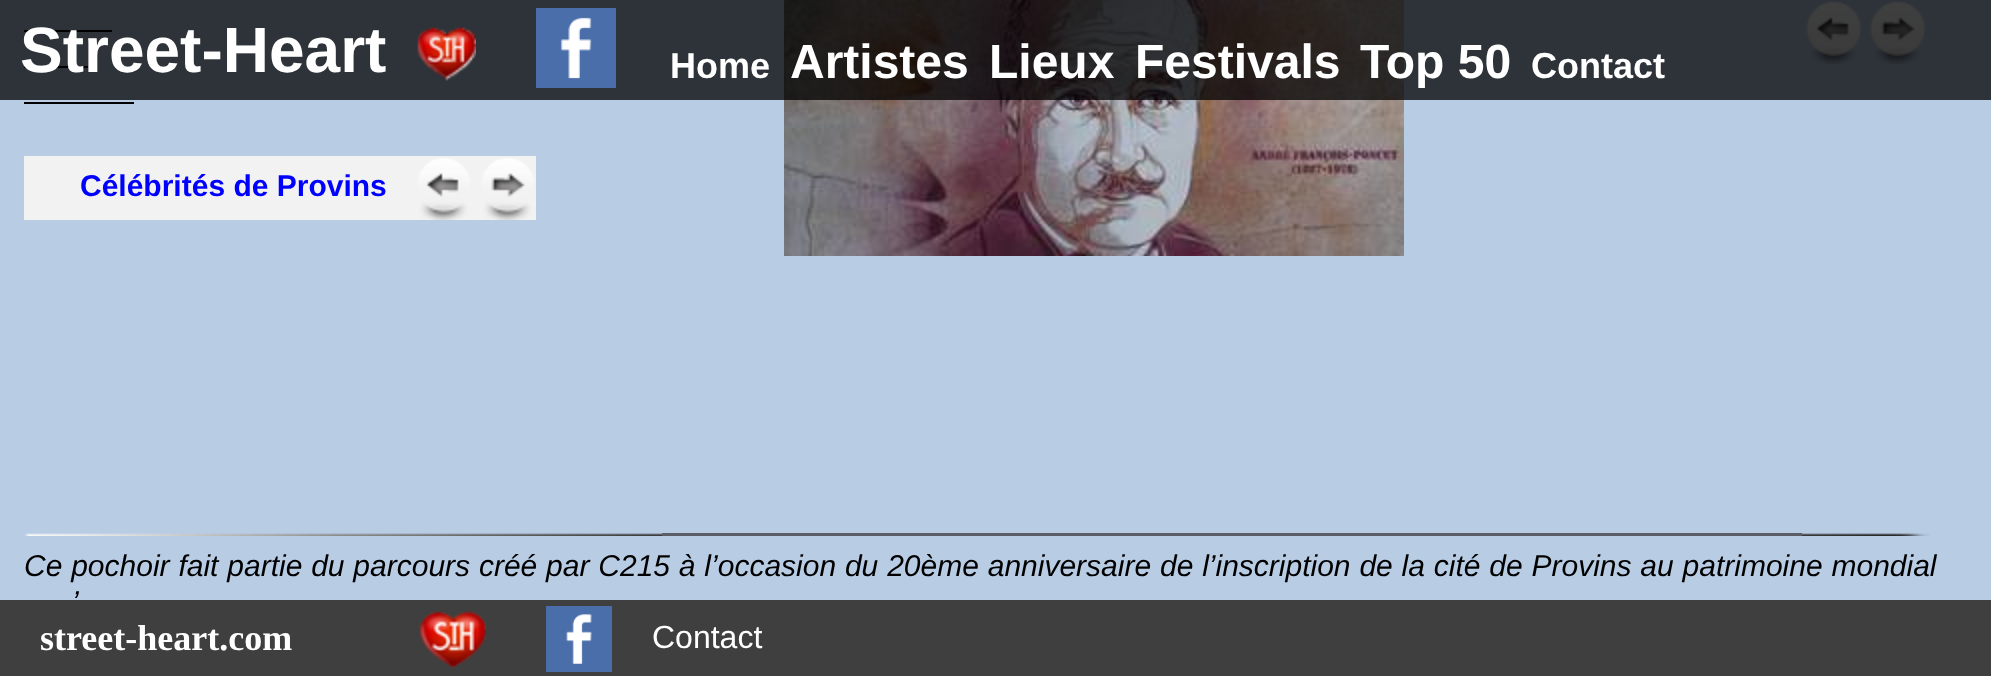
<?xml version="1.0" encoding="UTF-8"?>
<svg xmlns="http://www.w3.org/2000/svg" width="1991" height="676">
    <rect width="100%" height="100%" fill="#B8CCE4"/>
    <image x="784" y="0" width="620" height="256" href="img_03.png"/>
    <image x="1805" y="1" width="57" height="63" href="img_04.png"/>
    <image x="1869" y="1" width="57" height="63" href="img_05.png"/>
    <rect x="24" y="30" width="88" height="2" fill="#000000"/>
    <rect x="24" y="66" width="64" height="2" fill="#000000"/>
    <rect x="0" y="0" width="1991" height="100" fill="#000000" fill-opacity="0.75"/>
    <text x="20" y="72" font-family="Liberation Sans" font-size="64" font-weight="700" fill="#FFFFFF">Street-Heart</text>
    <image x="417" y="27" width="59" height="54" href="img_01.png"/>
    <image x="536" y="8" width="80" height="80" href="img_02.png"/>
    <text x="670" y="78" font-family="Liberation Sans" font-size="36" font-weight="700" fill="#FFFFFF">Home</text>
    <text x="790" y="78" font-family="Liberation Sans" font-size="48" font-weight="700" fill="#FFFFFF">Artistes</text>
    <text x="989" y="78" font-family="Liberation Sans" font-size="48" font-weight="700" fill="#FFFFFF">Lieux</text>
    <text x="1135" y="78" font-family="Liberation Sans" font-size="48" font-weight="700" fill="#FFFFFF">Festivals</text>
    <text x="1360" y="78" font-family="Liberation Sans" font-size="48" font-weight="700" fill="#FFFFFF">Top 50</text>
    <text x="1531" y="78" font-family="Liberation Sans" font-size="36" font-weight="700" fill="#FFFFFF">Contact</text>
    <rect x="24" y="102" width="110" height="2" fill="#000000"/>
    <rect x="24" y="156" width="512" height="64" fill="#F2F2F2"/>
    <text x="80" y="196" font-family="Liberation Sans" font-size="30" font-weight="700" fill="#0000FF">Célébrités de Provins</text>
    <image x="418" y="158" width="52" height="62" href="img_06.png"/>
    <image x="482" y="158" width="52" height="62" href="img_07.png"/>
    <image x="24" y="533" width="638" height="3" href="img_08.png"/>
    <rect x="662" y="533" width="1140" height="3" fill="#5B5E66"/>
    <image x="1802" y="533" width="128" height="3" href="img_09.png"/>
    <text x="24" y="576" word-spacing="0.5" font-family="Liberation Sans" font-size="30" font-style="italic" fill="#000000">Ce pochoir fait partie du parcours créé par C215 à l’occasion du 20ème anniversaire de l’inscription de la cité de Provins au patrimoine mondial</text>
    <text x="72" y="612" font-family="Liberation Sans" font-size="30" font-style="italic" fill="#000000">’</text>
    <rect x="0" y="600" width="1991" height="76" fill="#3F3F3F"/>
    <text x="40" y="650" font-family="Liberation Serif" font-size="36" font-weight="700" fill="#FFFFFF">street-heart.com</text>
    <image x="420" y="611" width="66" height="58" href="img_10.png"/>
    <image x="546" y="606" width="66" height="66" href="img_11.png"/>
    <text x="652" y="648" font-family="Liberation Sans" font-size="32" fill="#FFFFFF">Contact</text>
</svg>
